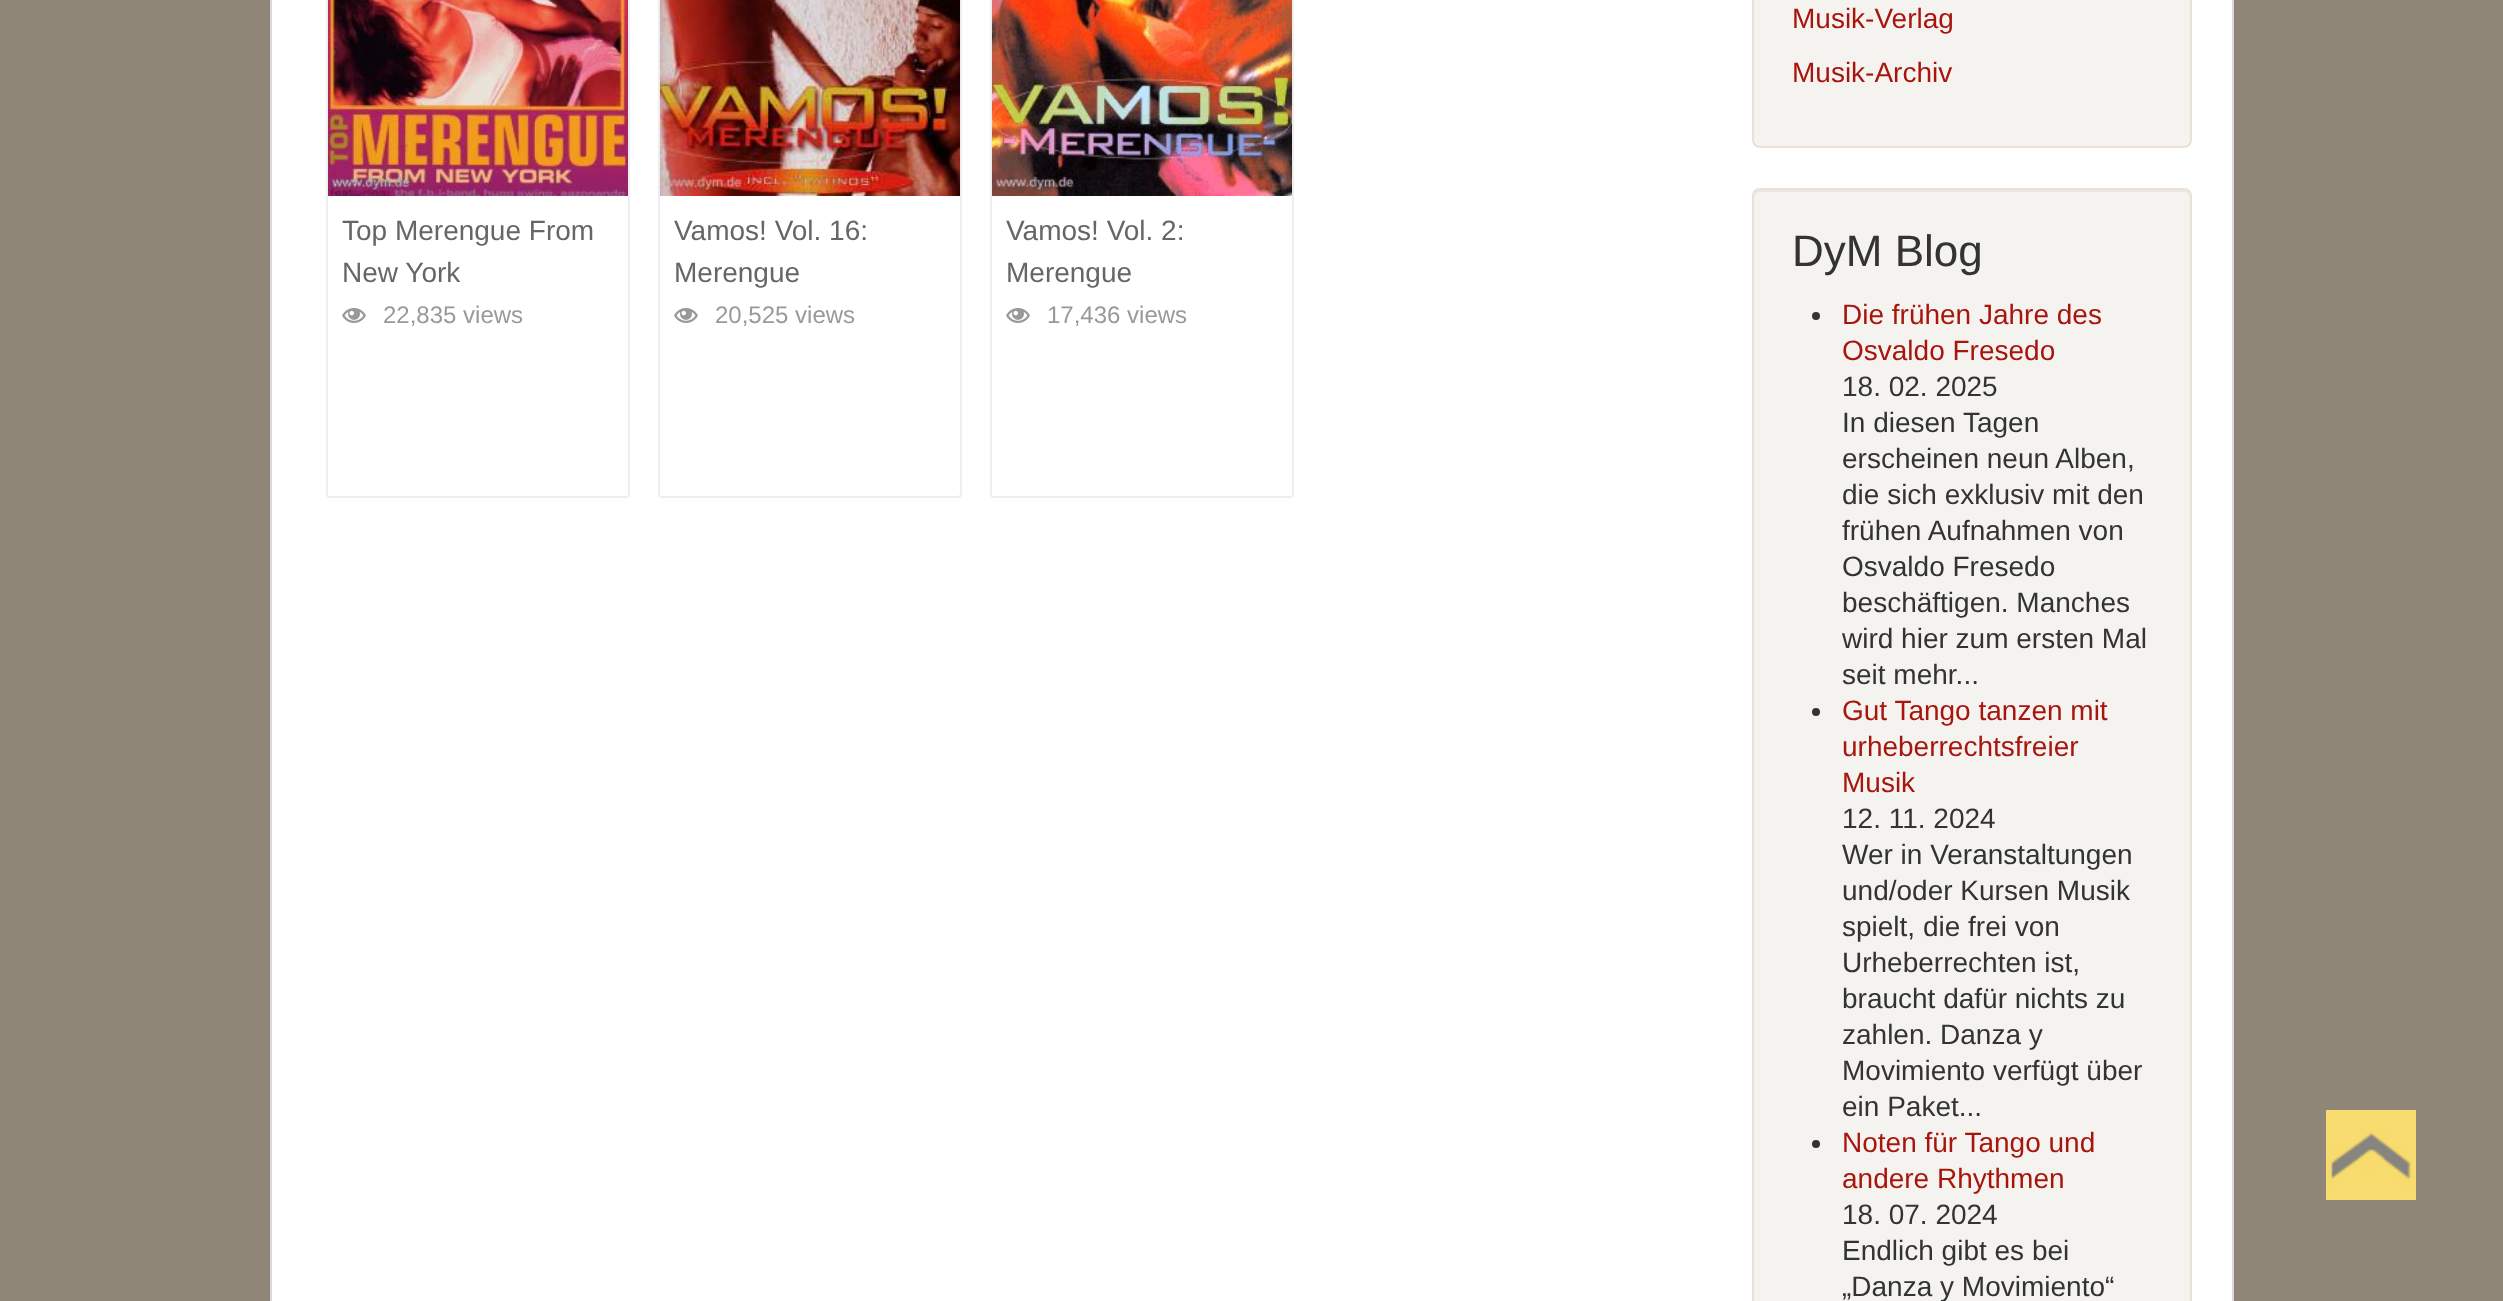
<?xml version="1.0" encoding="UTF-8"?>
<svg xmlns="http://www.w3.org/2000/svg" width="2503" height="1301">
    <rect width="100%" height="100%" fill="#8F8678"/>
    <rect x="271" y="-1" width="1962" height="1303" fill="#FFFFFF" stroke="#D9D9D9" stroke-width="2"/>
    <rect x="327" y="-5" width="302" height="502" rx="3" fill="none" stroke="#EEEEEE" stroke-width="2"/>
    <image x="328" y="0" width="300" height="196" href="img_01.png"/>
    <text font-family="Liberation Sans" font-size="28" fill="#666666">
        <tspan x="342" y="240">Top Merengue From</tspan>
        <tspan x="342" y="282">New York</tspan>
    </text>
    <image x="342" y="308" width="24" height="15" href="img_02.png"/>
    <text x="383" y="323" font-family="Liberation Sans" font-size="24" fill="#999999">22,835 views</text>
    <rect x="659" y="-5" width="302" height="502" rx="3" fill="none" stroke="#EEEEEE" stroke-width="2"/>
    <image x="660" y="0" width="300" height="196" href="img_03.png"/>
    <text font-family="Liberation Sans" font-size="28" fill="#666666">
        <tspan x="674" y="240">Vamos! Vol. 16:</tspan>
        <tspan x="674" y="282">Merengue</tspan>
    </text>
    <image x="674" y="308" width="24" height="15" href="img_02.png"/>
    <text x="715" y="323" font-family="Liberation Sans" font-size="24" fill="#999999">20,525 views</text>
    <rect x="991" y="-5" width="302" height="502" rx="3" fill="none" stroke="#EEEEEE" stroke-width="2"/>
    <image x="992" y="0" width="300" height="196" href="img_04.png"/>
    <text font-family="Liberation Sans" font-size="28" fill="#666666">
        <tspan x="1006" y="240">Vamos! Vol. 2:</tspan>
        <tspan x="1006" y="282">Merengue</tspan>
    </text>
    <image x="1006" y="308" width="24" height="15" href="img_02.png"/>
    <text x="1047" y="323" font-family="Liberation Sans" font-size="24" fill="#999999">17,436 views</text>
    <rect x="1753" y="-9" width="438" height="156" rx="7" fill="#F5F3F0" stroke="#E9E1D6" stroke-width="2"/>
    <text font-family="Liberation Sans" font-size="28" fill="#A8150D">
        <tspan x="1792" y="28">Musik-Verlag</tspan>
        <tspan x="1792" y="82">Musik-Archiv</tspan>
    </text>
    <rect x="1752" y="188" width="440" height="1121" rx="8" fill="#F5F3F0"/>
    <path d="M 1760 192 H 2184 C 2187 192 2190 195 2190 198 V 196 C 2190 193 2187 190 2184 190 H 1760 C 1757 190 1754 193 1754 196 V 198 C 1754 195 1757 192 1760 192 Z" fill="#E9E7E4"/>
    <rect x="1753" y="189" width="438" height="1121" rx="7" fill="none" stroke="#E9E1D6" stroke-width="2"/>
    <text x="1792" y="266" font-family="Liberation Sans" font-size="44" fill="#333333">DyM Blog</text>
    <circle cx="1816" cy="316" r="4" fill="#333333"/>
    <text font-family="Liberation Sans" font-size="28" fill="#A8150D">
        <tspan x="1842" y="324">Die frühen Jahre des</tspan>
        <tspan x="1842" y="360">Osvaldo Fresedo</tspan>
    </text>
    <text font-family="Liberation Sans" font-size="28" fill="#333333">
        <tspan x="1842" y="396">18. 02. 2025</tspan>
        <tspan x="1842" y="432">In diesen Tagen</tspan>
        <tspan x="1842" y="468">erscheinen neun Alben,</tspan>
        <tspan x="1842" y="504">die sich exklusiv mit den</tspan>
        <tspan x="1842" y="540">frühen Aufnahmen von</tspan>
        <tspan x="1842" y="576">Osvaldo Fresedo</tspan>
        <tspan x="1842" y="612">beschäftigen. Manches</tspan>
        <tspan x="1842" y="648">wird hier zum ersten Mal</tspan>
        <tspan x="1842" y="684">seit mehr...</tspan>
    </text>
    <circle cx="1816" cy="712" r="4" fill="#333333"/>
    <text font-family="Liberation Sans" font-size="28" fill="#A8150D">
        <tspan x="1842" y="720">Gut Tango tanzen mit</tspan>
        <tspan x="1842" y="756">urheberrechtsfreier</tspan>
        <tspan x="1842" y="792">Musik</tspan>
    </text>
    <text font-family="Liberation Sans" font-size="28" fill="#333333">
        <tspan x="1842" y="828">12. 11. 2024</tspan>
        <tspan x="1842" y="864">Wer in Veranstaltungen</tspan>
        <tspan x="1842" y="900">und/oder Kursen Musik</tspan>
        <tspan x="1842" y="936">spielt, die frei von</tspan>
        <tspan x="1842" y="972">Urheberrechten ist,</tspan>
        <tspan x="1842" y="1008">braucht dafür nichts zu</tspan>
        <tspan x="1842" y="1044">zahlen. Danza y</tspan>
        <tspan x="1842" y="1080">Movimiento verfügt über</tspan>
        <tspan x="1842" y="1116">ein Paket...</tspan>
    </text>
    <circle cx="1816" cy="1144" r="4" fill="#333333"/>
    <text font-family="Liberation Sans" font-size="28" fill="#A8150D">
        <tspan x="1842" y="1152">Noten für Tango und</tspan>
        <tspan x="1842" y="1188">andere Rhythmen</tspan>
    </text>
    <text font-family="Liberation Sans" font-size="28" fill="#333333">
        <tspan x="1842" y="1224">18. 07. 2024</tspan>
        <tspan x="1842" y="1260">Endlich gibt es bei</tspan>
        <tspan x="1842" y="1296">„Danza y Movimiento“</tspan>
    </text>
    <image x="2326" y="1110" width="90" height="90" href="img_05.png"/>
</svg>
